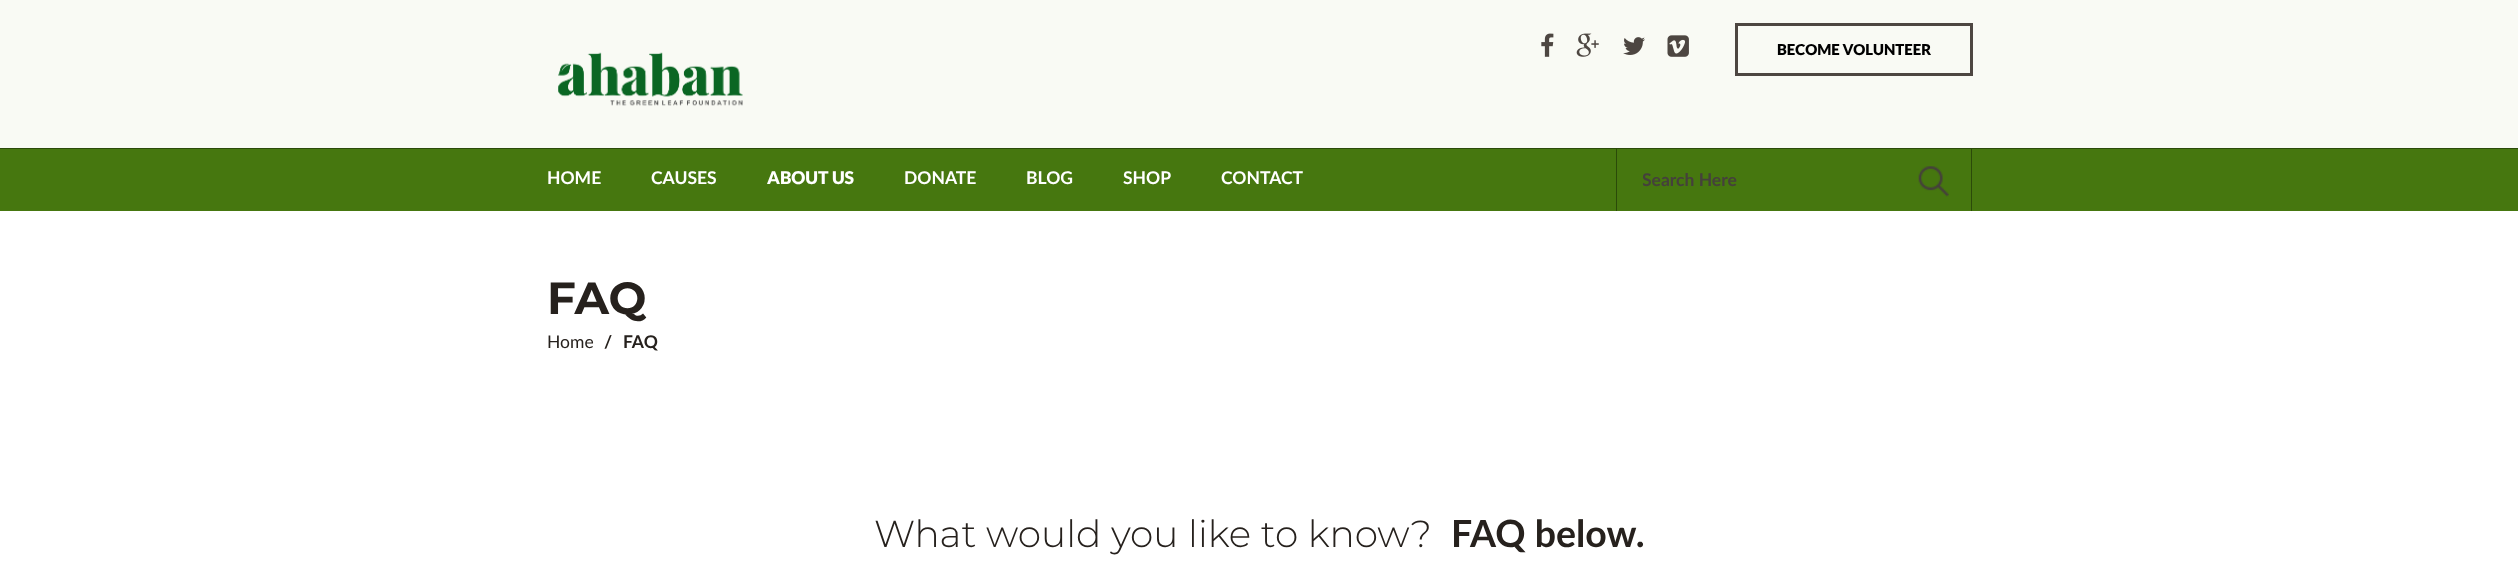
<?xml version="1.0" encoding="UTF-8"?>
<svg xmlns="http://www.w3.org/2000/svg" width="2518" height="561">
    <defs>
        <clipPath id="clip1"><rect x="1643" y="169" width="220" height="21"/></clipPath>
    </defs>
    <rect width="100%" height="100%" fill="#FFFFFF"/>
    <rect x="0" y="0" width="2518" height="148" fill="#F9FAF4"/>
    <image x="1541" y="33" width="13" height="24" href="img_01.png"/>
    <image x="1576" y="33" width="23" height="24" href="img_02.png"/>
    <image x="1623" y="37" width="22" height="18" href="img_03.png"/>
    <image x="1667" y="35" width="22" height="22" href="img_04.png"/>
    <rect x="1736.5" y="24.5" width="235" height="50" fill="none" stroke="#4D4641" stroke-width="3"/>
    <text x="1777" y="55" font-family="Lato" font-size="15" font-weight="900" fill="#000000">BECOME VOLUNTEER</text>
    <image x="558" y="52" width="185" height="54" href="img_05.png"/>
    <rect x="0" y="149" width="2518" height="62" fill="#46770F"/>
    <rect x="0" y="148" width="2518" height="1" fill="#2B4A09"/>
    <text x="547" y="184" font-family="Lato" font-size="17.5" font-weight="700" fill="#FFFFFF">HOME</text>
    <text x="651" y="184" font-family="Lato" font-size="17.5" font-weight="700" fill="#FFFFFF">CAUSES</text>
    <text x="767" y="184" font-family="Lato" font-size="17.5" font-weight="900" fill="#FFFFFF">ABOUT US</text>
    <text x="904" y="184" font-family="Lato" font-size="17.5" font-weight="700" fill="#FFFFFF">DONATE</text>
    <text x="1026" y="184" font-family="Lato" font-size="17.5" font-weight="700" fill="#FFFFFF">BLOG</text>
    <text x="1123" y="184" font-family="Lato" font-size="17.5" font-weight="700" fill="#FFFFFF">SHOP</text>
    <text x="1221" y="184" font-family="Lato" font-size="17.5" font-weight="700" fill="#FFFFFF">CONTACT</text>
    <rect x="1971" y="149" width="1" height="62" fill="#2B4A09"/>
    <rect x="1616" y="149" width="1" height="62" fill="#2B4A09"/>
    <g clip-path="url(#clip1)">
        <text x="1642" y="186" font-family="Lato" font-size="17.5" font-weight="700" fill="#45403C">Search Here</text>
    </g>
    <image x="1918" y="166" width="31" height="31" href="img_06.png"/>
    <text x="547" y="314" font-family="Montserrat" font-size="45" font-weight="700" fill="#26211D">FAQ</text>
    <text x="547" y="348" font-family="Lato" font-size="17.5" fill="#26211D">Home</text>
    <text x="604" y="348" font-family="Lato" font-size="17.5" font-weight="700" fill="#26211D">/</text>
    <text x="623" y="348" font-family="Lato" font-size="17.5" font-weight="700" fill="#26211D">FAQ</text>
    <text x="874" y="547" font-family="Montserrat" font-size="37.5" font-weight="300" fill="#26211D">What would you like to know?</text>
    <text x="1451" y="547" font-family="Lato" font-size="37.5" font-weight="700" fill="#26211D">FAQ below.</text>
</svg>
